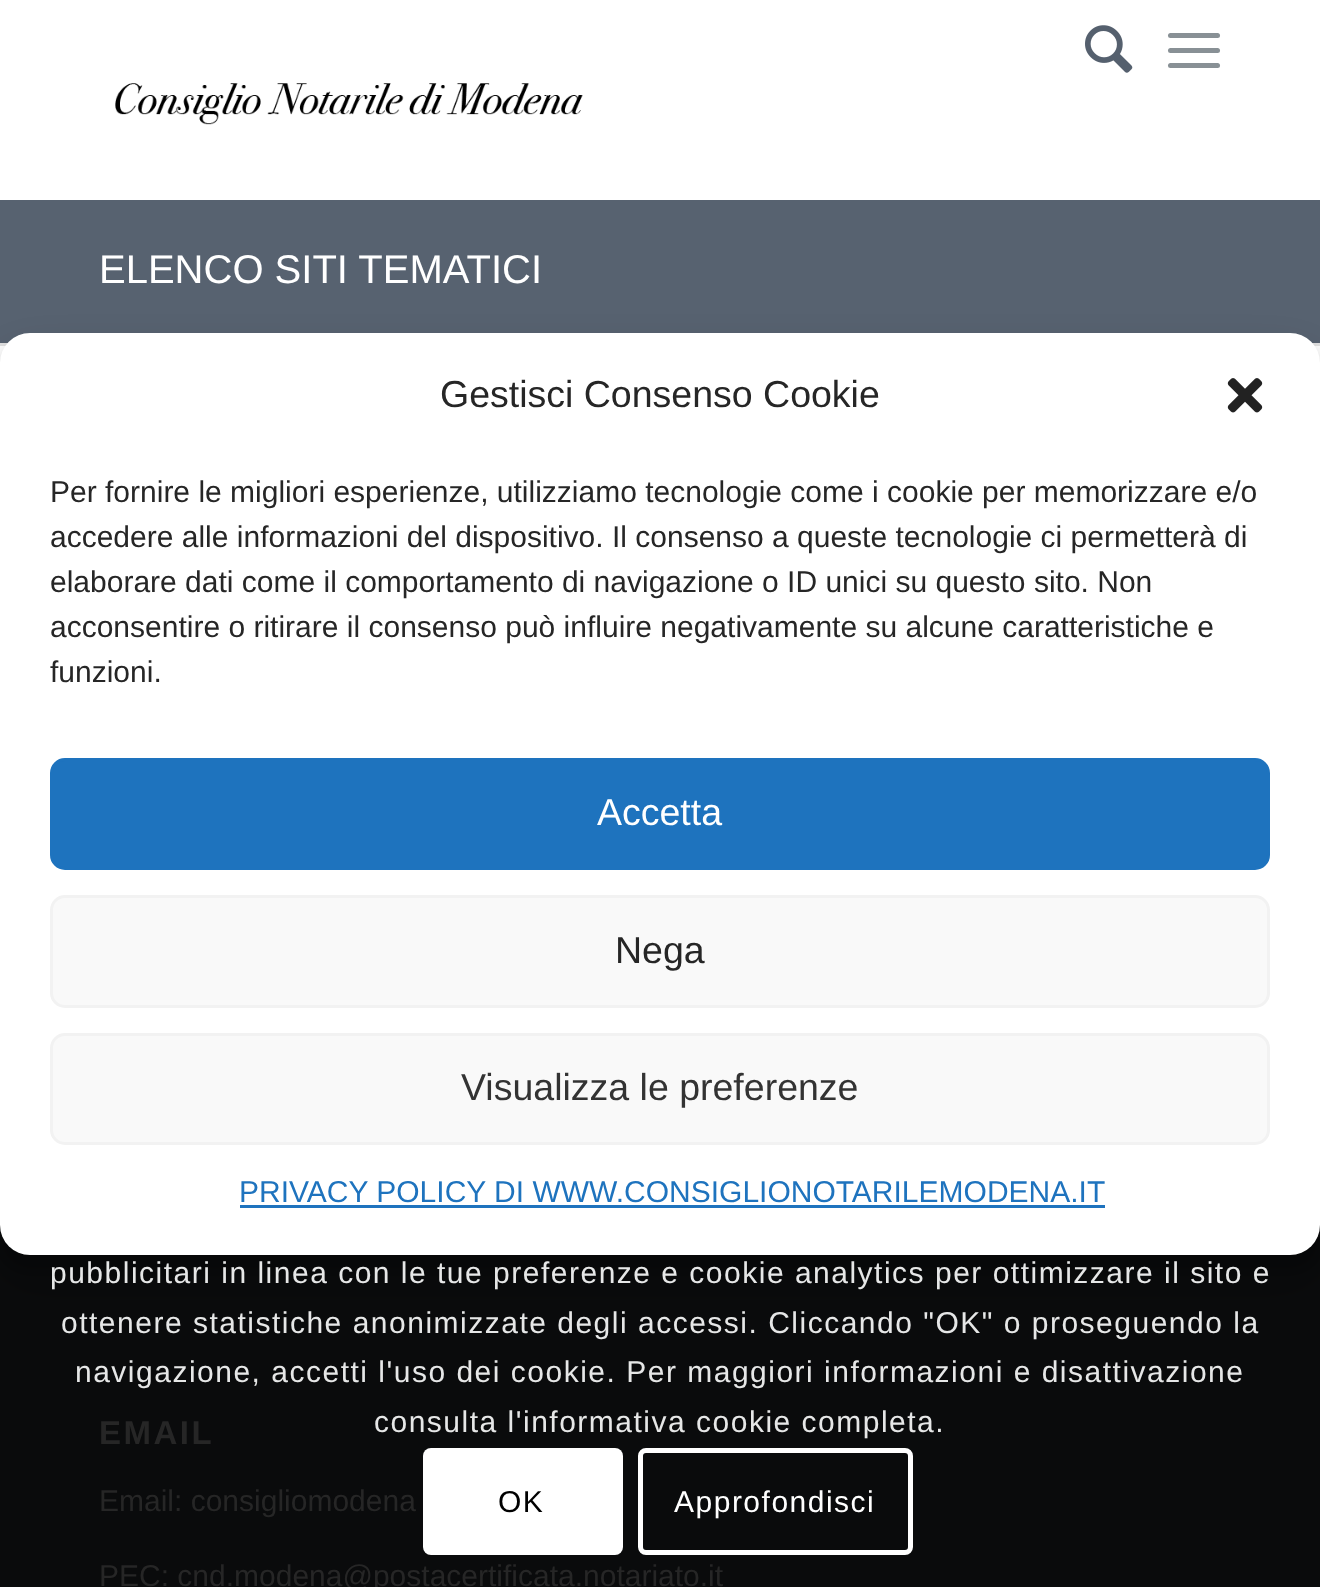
<?xml version="1.0" encoding="UTF-8"?>
<svg xmlns="http://www.w3.org/2000/svg" width="1320" height="1587">
    <defs>
        <filter id="blur1" x="-50%" y="-200%" width="200%" height="500%"><feGaussianBlur stdDeviation="7.5"/></filter>
        <filter id="blur2" x="-50%" y="-200%" width="200%" height="500%"><feGaussianBlur stdDeviation="25"/></filter>
    </defs>
    <rect width="100%" height="100%" fill="#FFFFFF"/>
    <image x="1085" y="25" width="48" height="48" href="img_01.png"/>
    <rect x="1168" y="48" width="52" height="5" rx="2.5" fill="#889095"/>
    <rect x="1168" y="33" width="52" height="5" rx="2.5" fill="#889095"/>
    <rect x="1168" y="63" width="52" height="5" rx="2.5" fill="#889095"/>
    <image x="115" y="83" width="468" height="42" href="img_02.png"/>
    <rect x="0" y="200" width="1320" height="143" fill="#576270"/>
    <text x="99" y="283" font-family="Liberation Sans" font-size="40" fill="#FFFFFF">ELENCO SITI TEMATICI</text>
    <rect x="0" y="343" width="1320" height="3" fill="#E1E1E1"/>
    <rect x="0" y="1225" width="1320" height="362" fill="#0A0B0C"/>
    <text x="99" y="1444" font-family="Liberation Sans" font-size="33" font-weight="700" letter-spacing="2.5" fill="#262626">EMAIL</text>
    <text x="99" y="1511" font-family="Liberation Sans" font-size="30" fill="#262626">Email: consigliomodena</text>
    <text x="99" y="1586" font-family="Liberation Sans" font-size="30" fill="#262626">PEC: cnd.modena@postacertificata.notariato.it</text>
    <rect x="0" y="348" width="1320" height="922" rx="30" fill="#000000" fill-opacity="0.23" filter="url(#blur1)"/>
    <rect x="0" y="358" width="1320" height="922" rx="30" fill="#000000" fill-opacity="0.19" filter="url(#blur2)"/>
    <rect x="0" y="333" width="1320" height="922" rx="30" fill="#FFFFFF"/>
    <text x="440" y="407" font-family="Liberation Sans" font-size="37.5" fill="#262626">Gestisci Consenso Cookie</text>
    <image x="1227" y="378" width="36" height="35" href="img_03.png"/>
    <text font-family="Liberation Sans" font-size="30" fill="#262626">
        <tspan x="50" y="502">Per fornire le migliori esperienze, utilizziamo tecnologie come i cookie per memorizzare e/o</tspan>
        <tspan x="50" y="547">accedere alle informazioni del dispositivo. Il consenso a queste tecnologie ci permetterà di</tspan>
        <tspan x="50" y="592">elaborare dati come il comportamento di navigazione o ID unici su questo sito. Non</tspan>
        <tspan x="50" y="637">acconsentire o ritirare il consenso può influire negativamente su alcune caratteristiche e</tspan>
        <tspan x="50" y="682">funzioni.</tspan>
    </text>
    <rect x="51.5" y="759.5" width="1217" height="109" rx="13.5" fill="#1E73BE" stroke="#1E73BE" stroke-width="3"/>
    <text x="597" y="825" font-family="Liberation Sans" font-size="37.5" fill="#FFFFFF">Accetta</text>
    <rect x="51.5" y="896.5" width="1217" height="110" rx="13.5" fill="#F9F9F9" stroke="#F2F2F2" stroke-width="3"/>
    <text x="615" y="963" font-family="Liberation Sans" font-size="37.5" fill="#262626">Nega</text>
    <rect x="51.5" y="1034.5" width="1217" height="109" rx="13.5" fill="#F9F9F9" stroke="#F2F2F2" stroke-width="3"/>
    <text x="461" y="1100" font-family="Liberation Sans" font-size="37.5" fill="#333333">Visualizza le preferenze</text>
    <text x="239" y="1202" font-family="Liberation Sans" font-size="30" fill="#1E73BE">PRIVACY POLICY DI WWW.CONSIGLIONOTARILEMODENA.IT</text>
    <rect x="240" y="1205" width="865" height="3" fill="#1E73BE"/>
    <text x="50" y="1283" font-family="Liberation Sans" font-size="30" letter-spacing="1.5" fill="#E6E7E7">pubblicitari in linea con le tue preferenze e cookie analytics per ottimizzare il sito e</text>
    <text x="61" y="1333" font-family="Liberation Sans" font-size="30" letter-spacing="1.5" fill="#E6E7E7">ottenere statistiche anonimizzate degli accessi. Cliccando "OK" o proseguendo la</text>
    <text x="75" y="1382" font-family="Liberation Sans" font-size="30" letter-spacing="1.5" fill="#E6E7E7">navigazione, accetti l'uso dei cookie. Per maggiori informazioni e disattivazione</text>
    <text x="374" y="1432" font-family="Liberation Sans" font-size="30" letter-spacing="1.5" fill="#E6E7E7">consulta l'informativa cookie completa.</text>
    <rect x="423" y="1448" width="200" height="107" rx="8" fill="#FFFFFF"/>
    <text x="498" y="1512" font-family="Liberation Sans" font-size="30" letter-spacing="1.5" fill="#000000">OK</text>
    <rect x="640.5" y="1450.5" width="270" height="102" rx="5.5" fill="none" stroke="#FFFFFF" stroke-width="5"/>
    <text x="674" y="1512" font-family="Liberation Sans" font-size="30" letter-spacing="1.5" fill="#FFFFFF">Approfondisci</text>
</svg>
